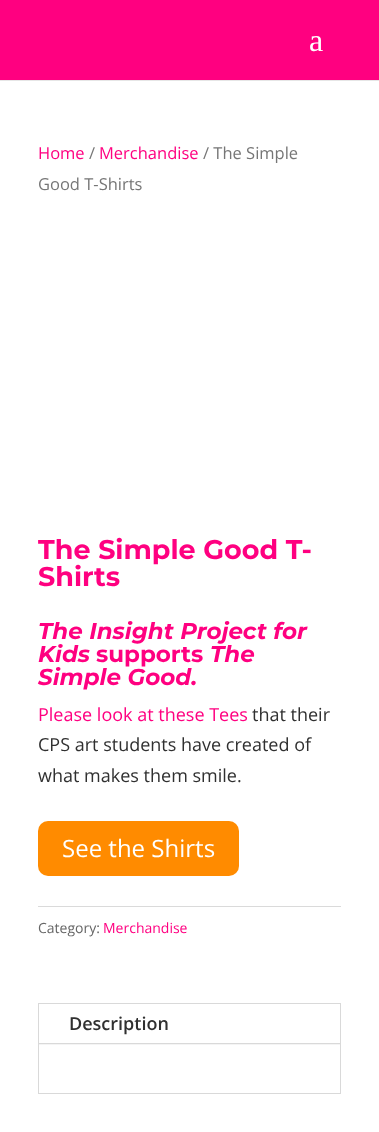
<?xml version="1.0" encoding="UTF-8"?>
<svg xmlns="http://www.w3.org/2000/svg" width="379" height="1132">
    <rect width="100%" height="100%" fill="#FFFFFF"/>
    <rect x="0" y="80" width="379" height="1" fill="#E6E6E6"/>
    <rect x="0" y="0" width="379" height="80" fill="#FF0080"/>
    <text x="309" y="51" font-family="Liberation Serif" font-size="32" fill="#FFFFFF">a</text>
    <text x="38" y="159" font-family="Open Sans" font-size="16.5" fill="#FF0080">Home</text>
    <text x="89" y="159" font-family="Open Sans" font-size="16.5" fill="#767676">/</text>
    <text x="99" y="159" font-family="Open Sans" font-size="16.5" fill="#FF0080">Merchandise</text>
    <text x="203" y="159" font-family="Open Sans" font-size="16.5" fill="#767676">/ The Simple</text>
    <text x="38" y="190" font-family="Open Sans" font-size="16.5" fill="#767676">Good T-Shirts</text>
    <text font-family="Montserrat" font-size="27" font-weight="700" fill="#FF0080">
        <tspan x="38" y="559">The Simple Good T-</tspan>
        <tspan x="38" y="586">Shirts</tspan>
    </text>
    <text font-family="Montserrat" font-size="23" font-weight="700" font-style="italic" fill="#FF0080">
        <tspan x="38" y="639">The Insight Project for</tspan>
        <tspan x="38" y="662">Kids</tspan>
    </text>
    <text x="96" y="662" font-family="Montserrat" font-size="23" font-weight="700" fill="#FF0080">supports</text>
    <text x="210" y="662" font-family="Montserrat" font-size="23" font-weight="700" font-style="italic" fill="#FF0080">The</text>
    <text x="38" y="685" font-family="Montserrat" font-size="23" font-weight="700" font-style="italic" fill="#FF0080">Simple Good.</text>
    <text x="38" y="721" font-family="Open Sans" font-size="18" fill="#FF0080">Please look at these Tees</text>
    <text x="252" y="721" font-family="Open Sans" font-size="18" fill="#303030">that their</text>
    <text font-family="Open Sans" font-size="18" fill="#303030">
        <tspan x="38" y="751">CPS art students have created of</tspan>
        <tspan x="38" y="782">what makes them smile.</tspan>
    </text>
    <rect x="38" y="821" width="201" height="55" rx="10" fill="#FF8B00"/>
    <text x="62" y="857" font-family="Open Sans" font-size="24" fill="#FFFFFF">See the Shirts</text>
    <rect x="38" y="906" width="303" height="1" fill="#DADADA"/>
    <text x="38" y="933" font-family="Open Sans" font-size="14" fill="#666666">Category:</text>
    <text x="103" y="933" font-family="Open Sans" font-size="14" fill="#FF0080">Merchandise</text>
    <rect x="38.5" y="1003.5" width="302" height="90" fill="none" stroke="#D9D9D9"/>
    <rect x="39" y="1044" width="301" height="1" fill="#F4F4F4"/>
    <rect x="39" y="1043" width="301" height="1" fill="#D9D9D9"/>
    <text x="69" y="1030" font-family="Open Sans" font-size="18" font-weight="600" fill="#303030">Description</text>
</svg>
